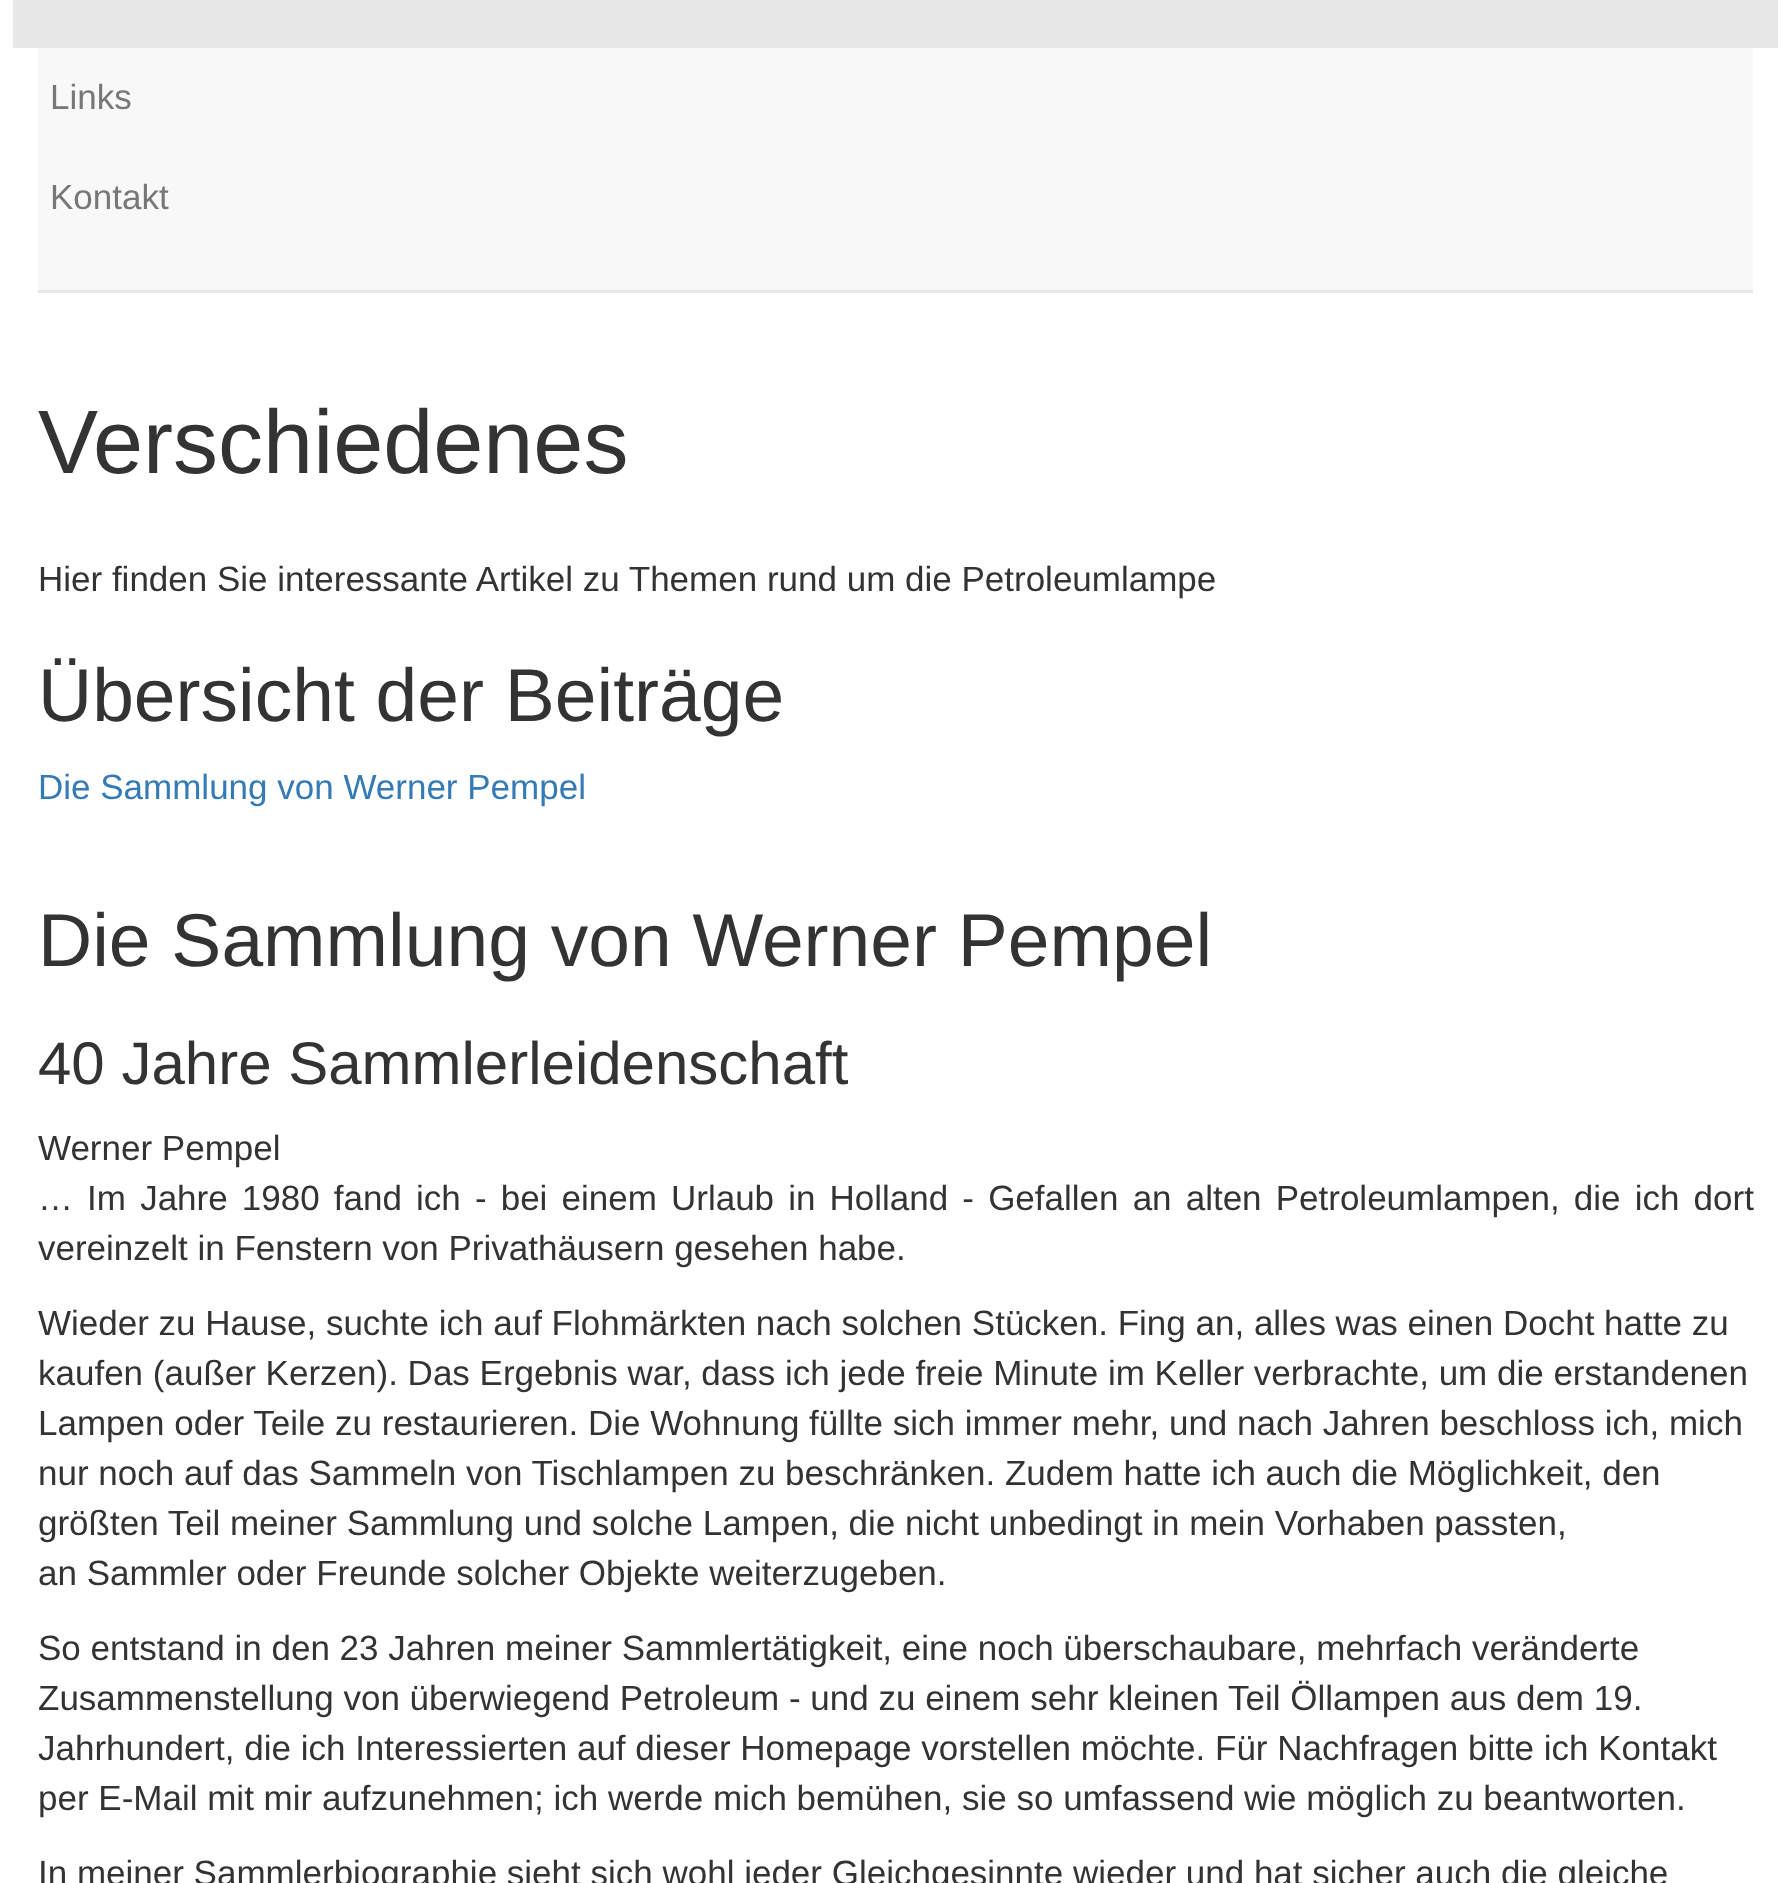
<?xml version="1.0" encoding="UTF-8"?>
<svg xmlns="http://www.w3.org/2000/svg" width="1790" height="1883">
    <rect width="100%" height="100%" fill="#FFFFFF"/>
    <rect x="38" y="48" width="1715" height="242" fill="#F8F8F8"/>
    <rect x="38" y="290" width="1715" height="3" fill="#E7E7E7"/>
    <rect x="13" y="0" width="1765" height="48" fill="#E7E7E7"/>
    <text x="50" y="109" font-family="Liberation Sans" font-size="35" fill="#777777">Links</text>
    <text x="50" y="209" font-family="Liberation Sans" font-size="35" fill="#777777">Kontakt</text>
    <text x="38" y="473" font-family="Liberation Sans" font-size="90" fill="#333333">Verschiedenes</text>
    <text x="38" y="591" font-family="Liberation Sans" font-size="35" fill="#333333">Hier finden Sie interessante Artikel zu Themen rund um die Petroleumlampe</text>
    <text x="38" y="721" font-family="Liberation Sans" font-size="75" fill="#333333">Übersicht der Beiträge</text>
    <text x="38" y="799" font-family="Liberation Sans" font-size="35" fill="#337AB7">Die Sammlung von Werner Pempel</text>
    <text x="38" y="966" font-family="Liberation Sans" font-size="75" fill="#333333">Die Sammlung von Werner Pempel</text>
    <text x="38" y="1084" font-family="Liberation Sans" font-size="60" fill="#333333">40 Jahre Sammlerleidenschaft</text>
    <text font-family="Liberation Sans" font-size="35" fill="#333333">
        <tspan x="38" y="1160">Werner Pempel</tspan>
        <tspan x="38" y="1210" word-spacing="4.4">… Im Jahre 1980 fand ich - bei einem Urlaub in Holland - Gefallen an alten Petroleumlampen, die ich dort</tspan>
        <tspan x="38" y="1260">vereinzelt in Fenstern von Privathäusern gesehen habe.</tspan>
    </text>
    <text font-family="Liberation Sans" font-size="35" fill="#333333">
        <tspan x="38" y="1335">Wieder zu Hause, suchte ich auf Flohmärkten nach solchen Stücken. Fing an, alles was einen Docht hatte zu</tspan>
        <tspan x="38" y="1385">kaufen (außer Kerzen). Das Ergebnis war, dass ich jede freie Minute im Keller verbrachte, um die erstandenen</tspan>
        <tspan x="38" y="1435">Lampen oder Teile zu restaurieren. Die Wohnung füllte sich immer mehr, und nach Jahren beschloss ich, mich</tspan>
        <tspan x="38" y="1485">nur noch auf das Sammeln von Tischlampen zu beschränken. Zudem hatte ich auch die Möglichkeit, den</tspan>
        <tspan x="38" y="1535">größten Teil meiner Sammlung und solche Lampen, die nicht unbedingt in mein Vorhaben passten,</tspan>
        <tspan x="38" y="1585">an Sammler oder Freunde solcher Objekte weiterzugeben.</tspan>
    </text>
    <text font-family="Liberation Sans" font-size="35" fill="#333333">
        <tspan x="38" y="1660">So entstand in den 23 Jahren meiner Sammlertätigkeit, eine noch überschaubare, mehrfach veränderte</tspan>
        <tspan x="38" y="1710">Zusammenstellung von überwiegend Petroleum - und zu einem sehr kleinen Teil Öllampen aus dem 19.</tspan>
        <tspan x="38" y="1760">Jahrhundert, die ich Interessierten auf dieser Homepage vorstellen möchte. Für Nachfragen bitte ich Kontakt</tspan>
        <tspan x="38" y="1810">per E-Mail mit mir aufzunehmen; ich werde mich bemühen, sie so umfassend wie möglich zu beantworten.</tspan>
    </text>
    <text x="38" y="1885" font-family="Liberation Sans" font-size="35" fill="#333333">In meiner Sammlerbiographie sieht sich wohl jeder Gleichgesinnte wieder und hat sicher auch die gleiche</text>
</svg>
